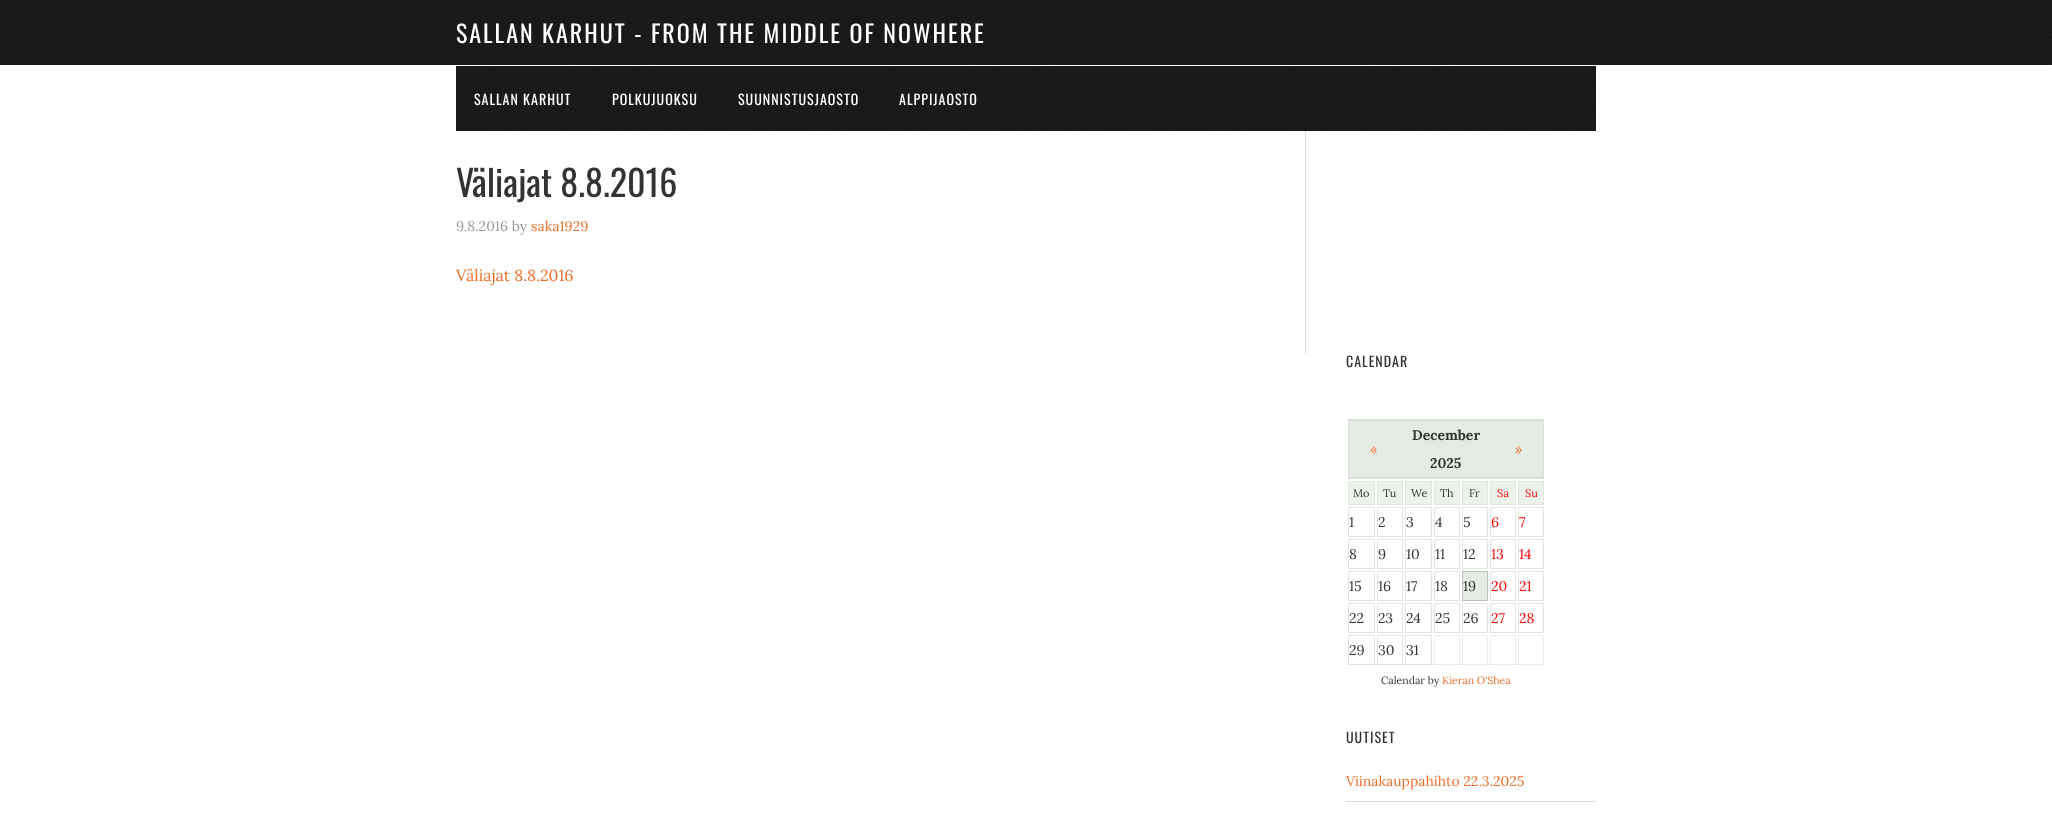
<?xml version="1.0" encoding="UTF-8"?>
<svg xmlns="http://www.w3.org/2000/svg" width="2052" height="814">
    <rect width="100%" height="100%" fill="#FFFFFF"/>
    <image x="0" y="0" width="2052" height="65" href="img_01.png"/>
    <text x="456" y="43" font-family="Oswald" font-size="24" letter-spacing="2" fill="#FFFFFF">SALLAN KARHUT - FROM THE MIDDLE OF NOWHERE</text>
    <image x="456" y="66" width="1140" height="65" href="img_02.png"/>
    <text x="474" y="105" font-family="Oswald" font-size="14" letter-spacing="1" fill="#FFFFFF">SALLAN KARHUT</text>
    <text x="612" y="105" font-family="Oswald" font-size="14" letter-spacing="1" fill="#FFFFFF">POLKUJUOKSU</text>
    <text x="738" y="105" font-family="Oswald" font-size="14" letter-spacing="1" fill="#FFFFFF">SUUNNISTUSJAOSTO</text>
    <text x="899" y="105" font-family="Oswald" font-size="14" letter-spacing="1" fill="#FFFFFF">ALPPIJAOSTO</text>
    <rect x="1305" y="131" width="1" height="223" fill="#DDDDDD"/>
    <text x="456" y="197" font-family="Oswald" font-size="36" fill="#333333">Väliajat 8.8.2016</text>
    <text x="456" y="231" font-family="Lora" font-size="14" fill="#999999">9.8.2016 by</text>
    <text x="531" y="231" font-family="Lora" font-size="14" fill="#ED702B">saka1929</text>
    <text x="456" y="281" font-family="Lora" font-size="16" fill="#ED702B">Väliajat 8.8.2016</text>
    <text x="1346" y="367" font-family="Oswald" font-size="14" letter-spacing="1" fill="#333333">CALENDAR</text>
    <rect x="1375" y="664" width="143" height="1" fill="#DDDDDD"/>
    <rect x="1349" y="421" width="194" height="56" fill="#E4EBE3"/>
    <rect x="1348.5" y="419.5" width="195" height="59" fill="none" stroke="#D6DED5"/>
    <rect x="1349" y="477" width="195" height="1" fill="#DDDDDD"/>
    <text x="1370" y="454" font-family="Lora" font-size="14" fill="#ED702B">«</text>
    <text x="1412" y="440" font-family="Lora" font-size="14" font-weight="700" fill="#333333">December</text>
    <text x="1430" y="468" font-family="Lora" font-size="14" font-weight="700" fill="#333333">2025</text>
    <rect x="1349" y="420" width="195" height="1" fill="#DDDDDD"/>
    <text x="1515" y="454" font-family="Lora" font-size="14" fill="#ED702B">»</text>
    <rect x="1348.5" y="481.5" width="26" height="23" fill="#EBF2EA" stroke="#DFE6DE"/>
    <text x="1353" y="497" font-family="Lora" font-size="11" fill="#333333">Mo</text>
    <rect x="1377.5" y="481.5" width="25" height="23" fill="#EBF2EA" stroke="#DFE6DE"/>
    <text x="1383" y="497" font-family="Lora" font-size="11" fill="#333333">Tu</text>
    <rect x="1405.5" y="481.5" width="26" height="23" fill="#EBF2EA" stroke="#DFE6DE"/>
    <text x="1411" y="497" font-family="Lora" font-size="11" fill="#333333">We</text>
    <rect x="1434.5" y="481.5" width="25" height="23" fill="#EBF2EA" stroke="#DFE6DE"/>
    <text x="1440" y="497" font-family="Lora" font-size="11" fill="#333333">Th</text>
    <rect x="1462.5" y="481.5" width="25" height="23" fill="#EBF2EA" stroke="#DFE6DE"/>
    <text x="1469" y="497" font-family="Lora" font-size="11" fill="#333333">Fr</text>
    <rect x="1490.5" y="481.5" width="25" height="23" fill="#EBF2EA" stroke="#DFE6DE"/>
    <text x="1497" y="497" font-family="Lora" font-size="11" fill="#FF0000">Sa</text>
    <rect x="1518.5" y="481.5" width="25" height="23" fill="#EBF2EA" stroke="#DFE6DE"/>
    <text x="1525" y="497" font-family="Lora" font-size="11" fill="#FF0000">Su</text>
    <rect x="1348.5" y="507.5" width="26" height="29" fill="none" stroke="#DFE6DE"/>
    <text x="1349" y="527" font-family="Lora" font-size="14" fill="#333333">1</text>
    <rect x="1377.5" y="507.5" width="25" height="29" fill="none" stroke="#DFE6DE"/>
    <text x="1378" y="527" font-family="Lora" font-size="14" fill="#333333">2</text>
    <rect x="1405.5" y="507.5" width="26" height="29" fill="none" stroke="#DFE6DE"/>
    <text x="1406" y="527" font-family="Lora" font-size="14" fill="#333333">3</text>
    <rect x="1434.5" y="507.5" width="25" height="29" fill="none" stroke="#DFE6DE"/>
    <text x="1435" y="527" font-family="Lora" font-size="14" fill="#333333">4</text>
    <rect x="1462.5" y="507.5" width="25" height="29" fill="none" stroke="#DFE6DE"/>
    <text x="1463" y="527" font-family="Lora" font-size="14" fill="#333333">5</text>
    <rect x="1490.5" y="507.5" width="25" height="29" fill="none" stroke="#DFE6DE"/>
    <text x="1491" y="527" font-family="Lora" font-size="14" fill="#FF0000">6</text>
    <rect x="1518.5" y="507.5" width="25" height="29" fill="none" stroke="#DFE6DE"/>
    <text x="1519" y="527" font-family="Lora" font-size="14" fill="#FF0000">7</text>
    <rect x="1348.5" y="539.5" width="26" height="29" fill="none" stroke="#DFE6DE"/>
    <text x="1349" y="559" font-family="Lora" font-size="14" fill="#333333">8</text>
    <rect x="1377.5" y="539.5" width="25" height="29" fill="none" stroke="#DFE6DE"/>
    <text x="1378" y="559" font-family="Lora" font-size="14" fill="#333333">9</text>
    <rect x="1405.5" y="539.5" width="26" height="29" fill="none" stroke="#DFE6DE"/>
    <text x="1406" y="559" font-family="Lora" font-size="14" fill="#333333">10</text>
    <rect x="1434.5" y="539.5" width="25" height="29" fill="none" stroke="#DFE6DE"/>
    <text x="1435" y="559" font-family="Lora" font-size="14" fill="#333333">11</text>
    <rect x="1462.5" y="539.5" width="25" height="29" fill="none" stroke="#DFE6DE"/>
    <text x="1463" y="559" font-family="Lora" font-size="14" fill="#333333">12</text>
    <rect x="1490.5" y="539.5" width="25" height="29" fill="none" stroke="#DFE6DE"/>
    <text x="1491" y="559" font-family="Lora" font-size="14" fill="#FF0000">13</text>
    <rect x="1518.5" y="539.5" width="25" height="29" fill="none" stroke="#DFE6DE"/>
    <text x="1519" y="559" font-family="Lora" font-size="14" fill="#FF0000">14</text>
    <rect x="1348.5" y="571.5" width="26" height="29" fill="none" stroke="#DFE6DE"/>
    <text x="1349" y="591" font-family="Lora" font-size="14" fill="#333333">15</text>
    <rect x="1377.5" y="571.5" width="25" height="29" fill="none" stroke="#DFE6DE"/>
    <text x="1378" y="591" font-family="Lora" font-size="14" fill="#333333">16</text>
    <rect x="1405.5" y="571.5" width="26" height="29" fill="none" stroke="#DFE6DE"/>
    <text x="1406" y="591" font-family="Lora" font-size="14" fill="#333333">17</text>
    <rect x="1434.5" y="571.5" width="25" height="29" fill="none" stroke="#DFE6DE"/>
    <text x="1435" y="591" font-family="Lora" font-size="14" fill="#333333">18</text>
    <rect x="1462.5" y="571.5" width="25" height="29" fill="#E4EBE3" stroke="#BFBFBF"/>
    <text x="1463" y="591" font-family="Lora" font-size="14" fill="#333333">19</text>
    <rect x="1490.5" y="571.5" width="25" height="29" fill="none" stroke="#DFE6DE"/>
    <text x="1491" y="591" font-family="Lora" font-size="14" fill="#FF0000">20</text>
    <rect x="1518.5" y="571.5" width="25" height="29" fill="none" stroke="#DFE6DE"/>
    <text x="1519" y="591" font-family="Lora" font-size="14" fill="#FF0000">21</text>
    <rect x="1348.5" y="603.5" width="26" height="29" fill="none" stroke="#DFE6DE"/>
    <text x="1349" y="623" font-family="Lora" font-size="14" fill="#333333">22</text>
    <rect x="1377.5" y="603.5" width="25" height="29" fill="none" stroke="#DFE6DE"/>
    <text x="1378" y="623" font-family="Lora" font-size="14" fill="#333333">23</text>
    <rect x="1405.5" y="603.5" width="26" height="29" fill="none" stroke="#DFE6DE"/>
    <text x="1406" y="623" font-family="Lora" font-size="14" fill="#333333">24</text>
    <rect x="1434.5" y="603.5" width="25" height="29" fill="none" stroke="#DFE6DE"/>
    <text x="1435" y="623" font-family="Lora" font-size="14" fill="#333333">25</text>
    <rect x="1462.5" y="603.5" width="25" height="29" fill="none" stroke="#DFE6DE"/>
    <text x="1463" y="623" font-family="Lora" font-size="14" fill="#333333">26</text>
    <rect x="1490.5" y="603.5" width="25" height="29" fill="none" stroke="#DFE6DE"/>
    <text x="1491" y="623" font-family="Lora" font-size="14" fill="#FF0000">27</text>
    <rect x="1518.5" y="603.5" width="25" height="29" fill="none" stroke="#DFE6DE"/>
    <text x="1519" y="623" font-family="Lora" font-size="14" fill="#FF0000">28</text>
    <rect x="1348.5" y="635.5" width="26" height="29" fill="none" stroke="#DFE6DE"/>
    <text x="1349" y="655" font-family="Lora" font-size="14" fill="#333333">29</text>
    <rect x="1377.5" y="635.5" width="25" height="29" fill="none" stroke="#DFE6DE"/>
    <text x="1378" y="655" font-family="Lora" font-size="14" fill="#333333">30</text>
    <rect x="1405.5" y="635.5" width="26" height="29" fill="none" stroke="#DFE6DE"/>
    <text x="1406" y="655" font-family="Lora" font-size="14" fill="#333333">31</text>
    <rect x="1434.5" y="635.5" width="25" height="29" fill="none" stroke="#E9F0E8"/>
    <rect x="1462.5" y="635.5" width="25" height="29" fill="none" stroke="#E9F0E8"/>
    <rect x="1490.5" y="635.5" width="25" height="29" fill="none" stroke="#E9F0E8"/>
    <rect x="1518.5" y="635.5" width="25" height="29" fill="none" stroke="#E9F0E8"/>
    <text x="1381" y="684" font-family="Lora" font-size="10.5" fill="#333333">Calendar by</text>
    <text x="1442" y="684" font-family="Lora" font-size="10.5" fill="#ED702B">Kieran O'Shea</text>
    <text x="1346" y="743" font-family="Oswald" font-size="14" letter-spacing="1" fill="#333333">UUTISET</text>
    <rect x="1346" y="801" width="250" height="1" fill="#DDDDDD"/>
    <text x="1346" y="786" font-family="Lora" font-size="14" fill="#ED702B">Viinakauppahihto 22.3.2025</text>
</svg>
